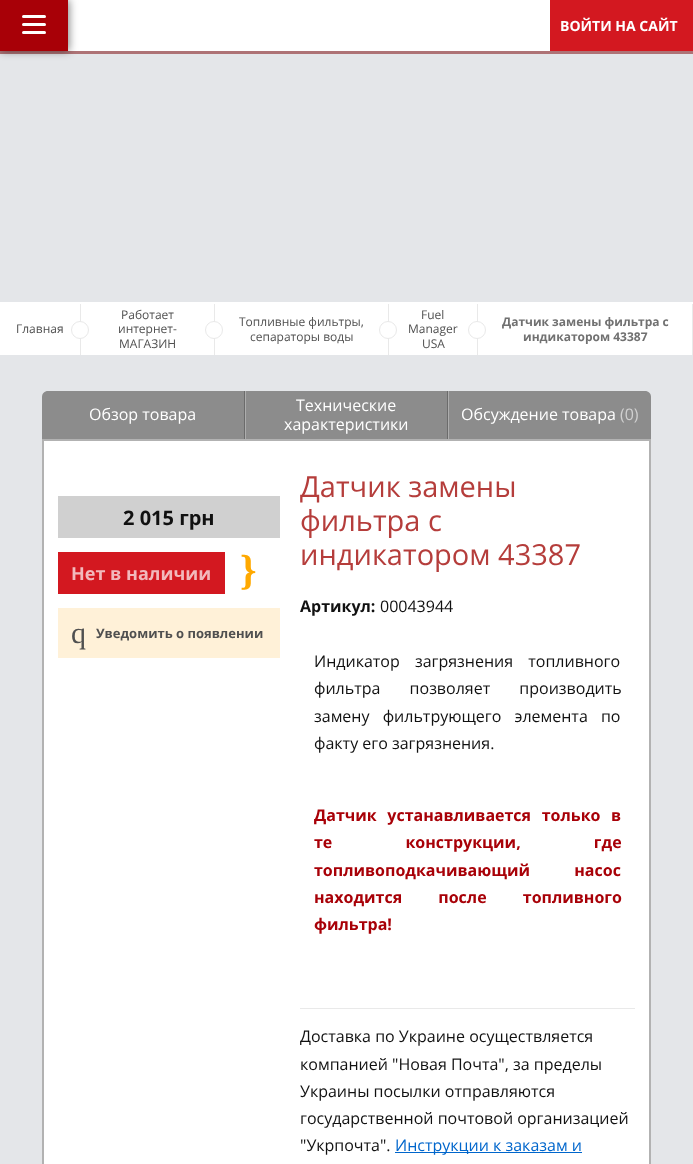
<?xml version="1.0" encoding="UTF-8"?>
<svg xmlns="http://www.w3.org/2000/svg" width="693" height="1164">
    <defs>
        <filter id="blur1" x="-50%" y="-200%" width="200%" height="500%"><feGaussianBlur stdDeviation="4.5"/></filter>
    </defs>
    <rect width="100%" height="100%" fill="#E4E6E9"/>
    <rect x="68" y="0" width="482" height="51" fill="#FFFFFF"/>
    <rect x="0" y="51" width="693" height="3" fill="#AE7376"/>
    <rect x="1" y="0" width="68" height="51" fill="#000000" fill-opacity="0.5" filter="url(#blur1)"/>
    <rect x="0" y="0" width="68" height="51" fill="#A80007"/>
    <rect x="22" y="15" width="24" height="3" rx="1.5" fill="#FFFFFF"/>
    <rect x="22" y="23" width="24" height="3" rx="1.5" fill="#FFFFFF"/>
    <rect x="22" y="31" width="24" height="3" rx="1.5" fill="#FFFFFF"/>
    <rect x="550" y="0" width="143" height="51" fill="#D31820"/>
    <text x="560" y="31" font-family="Open Sans" font-size="14" font-weight="700" fill="#FFFFFF">ВОЙТИ НА САЙТ</text>
    <rect x="0" y="302" width="693" height="2" fill="#FFFFFF"/>
    <rect x="0" y="304" width="692" height="51" fill="#FFFFFF"/>
    <rect x="80" y="304" width="1" height="51" fill="#E9E9E9"/>
    <text x="16" y="333" font-family="Open Sans" font-size="12" fill="#505050">Главная</text>
    <circle cx="80" cy="330" r="8.5" fill="#FFFFFF" stroke="#E9E9E9"/>
    <rect x="214" y="304" width="1" height="51" fill="#E9E9E9"/>
    <text x="121" y="319" font-family="Open Sans" font-size="12" fill="#505050">Работает</text>
    <text x="118" y="333" font-family="Open Sans" font-size="12" fill="#505050">интернет-</text>
    <text x="119" y="348" font-family="Open Sans" font-size="12" fill="#505050">МАГАЗИН</text>
    <circle cx="214" cy="330" r="8.5" fill="#FFFFFF" stroke="#E9E9E9"/>
    <rect x="388" y="304" width="1" height="51" fill="#E9E9E9"/>
    <text x="239" y="326" font-family="Open Sans" font-size="12" fill="#505050">Топливные фильтры,</text>
    <text x="250" y="341" font-family="Open Sans" font-size="12" fill="#505050">сепараторы воды</text>
    <circle cx="388" cy="330" r="8.5" fill="#FFFFFF" stroke="#E9E9E9"/>
    <rect x="477" y="304" width="1" height="51" fill="#E9E9E9"/>
    <text x="421" y="319" font-family="Open Sans" font-size="12" fill="#505050">Fuel</text>
    <text x="408" y="333" font-family="Open Sans" font-size="12" fill="#505050">Manager</text>
    <text x="422" y="348" font-family="Open Sans" font-size="12" fill="#505050">USA</text>
    <circle cx="477" cy="330" r="8.5" fill="#FFFFFF" stroke="#E9E9E9"/>
    <rect x="692" y="304" width="1" height="51" fill="#E9E9E9"/>
    <text x="502" y="326" font-family="Open Sans" font-size="12" font-weight="700" fill="#717171">Датчик замены фильтра с</text>
    <text x="523" y="341" font-family="Open Sans" font-size="12" font-weight="700" fill="#717171">индикатором 43387</text>
    <path d="M 48 391 H 245 V 439 H 42 V 397 C 42 393.5 44.5 391 48 391 Z" fill="#8C8C8C"/>
    <rect x="244" y="391" width="1" height="48" fill="#6B6B6B"/>
    <text x="89" y="420" font-family="Open Sans" font-size="16" fill="#FFFFFF">Обзор товара</text>
    <rect x="246" y="391" width="201" height="48" fill="#8C8C8C"/>
    <rect x="447" y="391" width="1" height="48" fill="#6B6B6B"/>
    <rect x="245" y="391" width="1" height="48" fill="#ADADAD"/>
    <text x="296" y="411" font-family="Open Sans" font-size="16" fill="#FFFFFF">Технические</text>
    <text x="284" y="430" font-family="Open Sans" font-size="16" fill="#FFFFFF">характеристики</text>
    <path d="M 448 391 H 645 C 648.5 391 651 393.5 651 397 V 439 H 448 Z" fill="#8C8C8C"/>
    <rect x="448" y="391" width="1" height="48" fill="#ADADAD"/>
    <text x="461" y="420" font-family="Open Sans" font-size="16" fill="#FFFFFF">Обсуждение товара</text>
    <text x="620" y="420" font-family="Open Sans" font-size="16" fill="#D0D0D0">(0)</text>
    <rect x="43" y="440" width="607" height="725" fill="#FFFFFF" stroke="#B2B2B2" stroke-width="2"/>
    <rect x="58" y="496" width="222" height="42" fill="#D0D0D0"/>
    <text x="123" y="525" font-family="Open Sans" font-size="20" font-weight="700" fill="#111111">2 015 грн</text>
    <rect x="58" y="552" width="167" height="42" fill="#D31820"/>
    <text x="71" y="580" font-family="Open Sans" font-size="18" font-weight="700" fill="#F2B9BC">Нет в наличии</text>
    <text x="240" y="584" font-family="Liberation Serif" font-size="42" font-weight="700" fill="#FFA900">}</text>
    <rect x="58" y="608" width="222" height="50" fill="#FFF1D8"/>
    <text x="71" y="643" font-family="Liberation Serif" font-size="30" fill="#505050">q</text>
    <text x="96" y="638" font-family="Open Sans" font-size="13" font-weight="700" fill="#505050">Уведомить о появлении</text>
    <text font-family="Open Sans" font-size="29" fill="#B53D3B">
        <tspan x="300" y="497">Датчик замены</tspan>
        <tspan x="300" y="531">фильтра с</tspan>
        <tspan x="300" y="565">индикатором 43387</tspan>
    </text>
    <text x="300" y="612" font-family="Open Sans" font-size="16" font-weight="700" fill="#111111">Артикул:</text>
    <text x="380" y="612" font-family="Open Sans" font-size="16" fill="#111111">00043944</text>
    <text font-family="Open Sans" font-size="16" fill="#111111">
        <tspan x="314" y="667" word-spacing="11">Индикатор загрязнения топливного</tspan>
        <tspan x="314" y="694" word-spacing="25">фильтра позволяет производить</tspan>
        <tspan x="314" y="722" word-spacing="9">замену фильтрующего элемента по</tspan>
        <tspan x="314" y="749">факту его загрязнения.</tspan>
    </text>
    <text font-family="Open Sans" font-size="16" font-weight="700" fill="#A80007">
        <tspan x="314" y="821" word-spacing="6.5">Датчик устанавливается только в</tspan>
        <tspan x="314" y="848" word-spacing="69">те конструкции, где</tspan>
        <tspan x="314" y="876" word-spacing="40">топливоподкачивающий насос</tspan>
        <tspan x="314" y="903" word-spacing="32">находится после топливного</tspan>
        <tspan x="314" y="930">фильтра!</tspan>
    </text>
    <rect x="300" y="1008" width="335" height="1" fill="#E9E9E9"/>
    <text font-family="Open Sans" font-size="16" fill="#111111">
        <tspan x="300" y="1042">Доставка по Украине осуществляется</tspan>
        <tspan x="300" y="1070">компанией "Новая Почта", за пределы</tspan>
        <tspan x="300" y="1097">Украины посылки отправляются</tspan>
        <tspan x="300" y="1124">государственной почтовой организацией</tspan>
        <tspan x="300" y="1151">"Укрпочта".</tspan>
    </text>
    <rect x="395" y="1152" width="187" height="1" fill="#0066CC"/>
    <text x="395" y="1151" font-family="Open Sans" font-size="16" fill="#0066CC">Инструкции к заказам и</text>
</svg>
